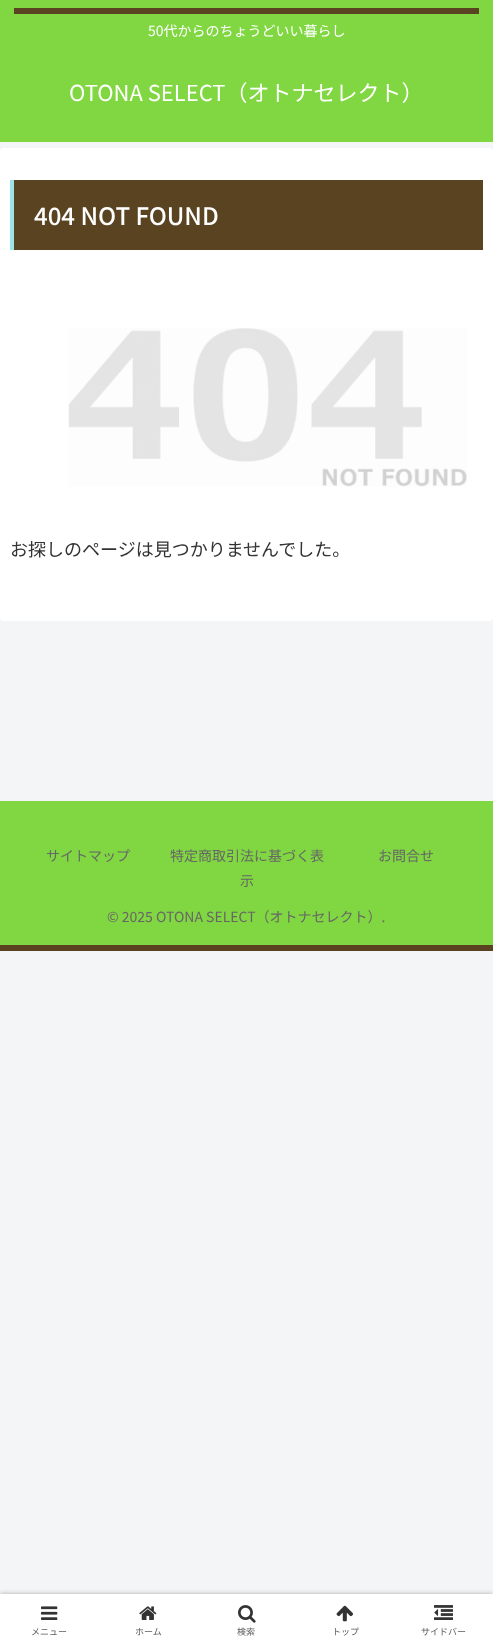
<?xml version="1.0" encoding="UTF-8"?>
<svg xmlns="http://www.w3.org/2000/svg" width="493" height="1644">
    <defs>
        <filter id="blur1" x="-50%" y="-200%" width="200%" height="500%"><feGaussianBlur stdDeviation="2.5"/></filter>
    </defs>
    <rect width="100%" height="100%" fill="#F4F5F7"/>
    <rect x="0" y="0" width="493" height="142" fill="#81D742"/>
    <rect x="14" y="8" width="465" height="6" fill="#594321"/>
    <text x="148" y="36" font-family="Noto Sans JP" font-size="14" fill="#FFFFFF">50代からのちょうどいい暮らし</text>
    <text x="69" y="101" font-family="Noto Sans JP" font-size="22" fill="#FFFFFF">OTONA SELECT（オトナセレクト）</text>
    <rect x="0" y="148" width="493" height="473" rx="4" fill="#FFFFFF"/>
    <rect x="14" y="180" width="469" height="70" fill="#594321"/>
    <rect x="10" y="180" width="4" height="70" fill="#9BE4E8"/>
    <text x="34" y="225" font-family="Noto Sans JP" font-size="24" font-weight="500" fill="#FFFFFF">404 NOT FOUND</text>
    <image x="68" y="328" width="399" height="159" href="img_01.png"/>
    <text x="10" y="556" font-family="Noto Sans JP" font-size="18" fill="#333333">お探しのページは見つかりませんでした。</text>
    <rect x="0" y="801" width="493" height="144" fill="#81D742"/>
    <rect x="0" y="945" width="493" height="6" fill="#594321"/>
    <text x="46" y="861" font-family="Noto Sans JP" font-size="14" fill="#666666">サイトマップ</text>
    <text x="170" y="861" font-family="Noto Sans JP" font-size="14" fill="#666666">特定商取引法に基づく表</text>
    <text x="240" y="886" font-family="Noto Sans JP" font-size="14" fill="#666666">示</text>
    <text x="378" y="861" font-family="Noto Sans JP" font-size="14" fill="#666666">お問合せ</text>
    <text x="107" y="922" font-family="Noto Sans JP" font-size="14" fill="#666666">© 2025 OTONA SELECT（オトナセレクト）.</text>
    <rect x="0" y="1594" width="493" height="50" fill="#A9A9A9" filter="url(#blur1)"/>
    <rect x="0" y="1594" width="493" height="50" fill="#FFFFFF"/>
    <image x="41" y="1606" width="17" height="14" href="img_02.png"/>
    <text x="31" y="1635" font-family="Noto Sans JP" font-size="9" fill="#5C5C5C">メニュー</text>
    <image x="139" y="1606" width="18" height="14" href="img_03.png"/>
    <text x="135" y="1635" font-family="Noto Sans JP" font-size="9" fill="#5C5C5C">ホーム</text>
    <image x="238" y="1605" width="18" height="18" href="img_04.png"/>
    <text x="237" y="1635" font-family="Noto Sans JP" font-size="9" fill="#5C5C5C">検索</text>
    <image x="336" y="1605" width="17" height="17" href="img_05.png"/>
    <text x="332" y="1635" font-family="Noto Sans JP" font-size="9" fill="#5C5C5C">トップ</text>
    <image x="434" y="1605" width="19" height="15" href="img_06.png"/>
    <text x="421" y="1635" font-family="Noto Sans JP" font-size="9" fill="#5C5C5C">サイドバー</text>
</svg>
